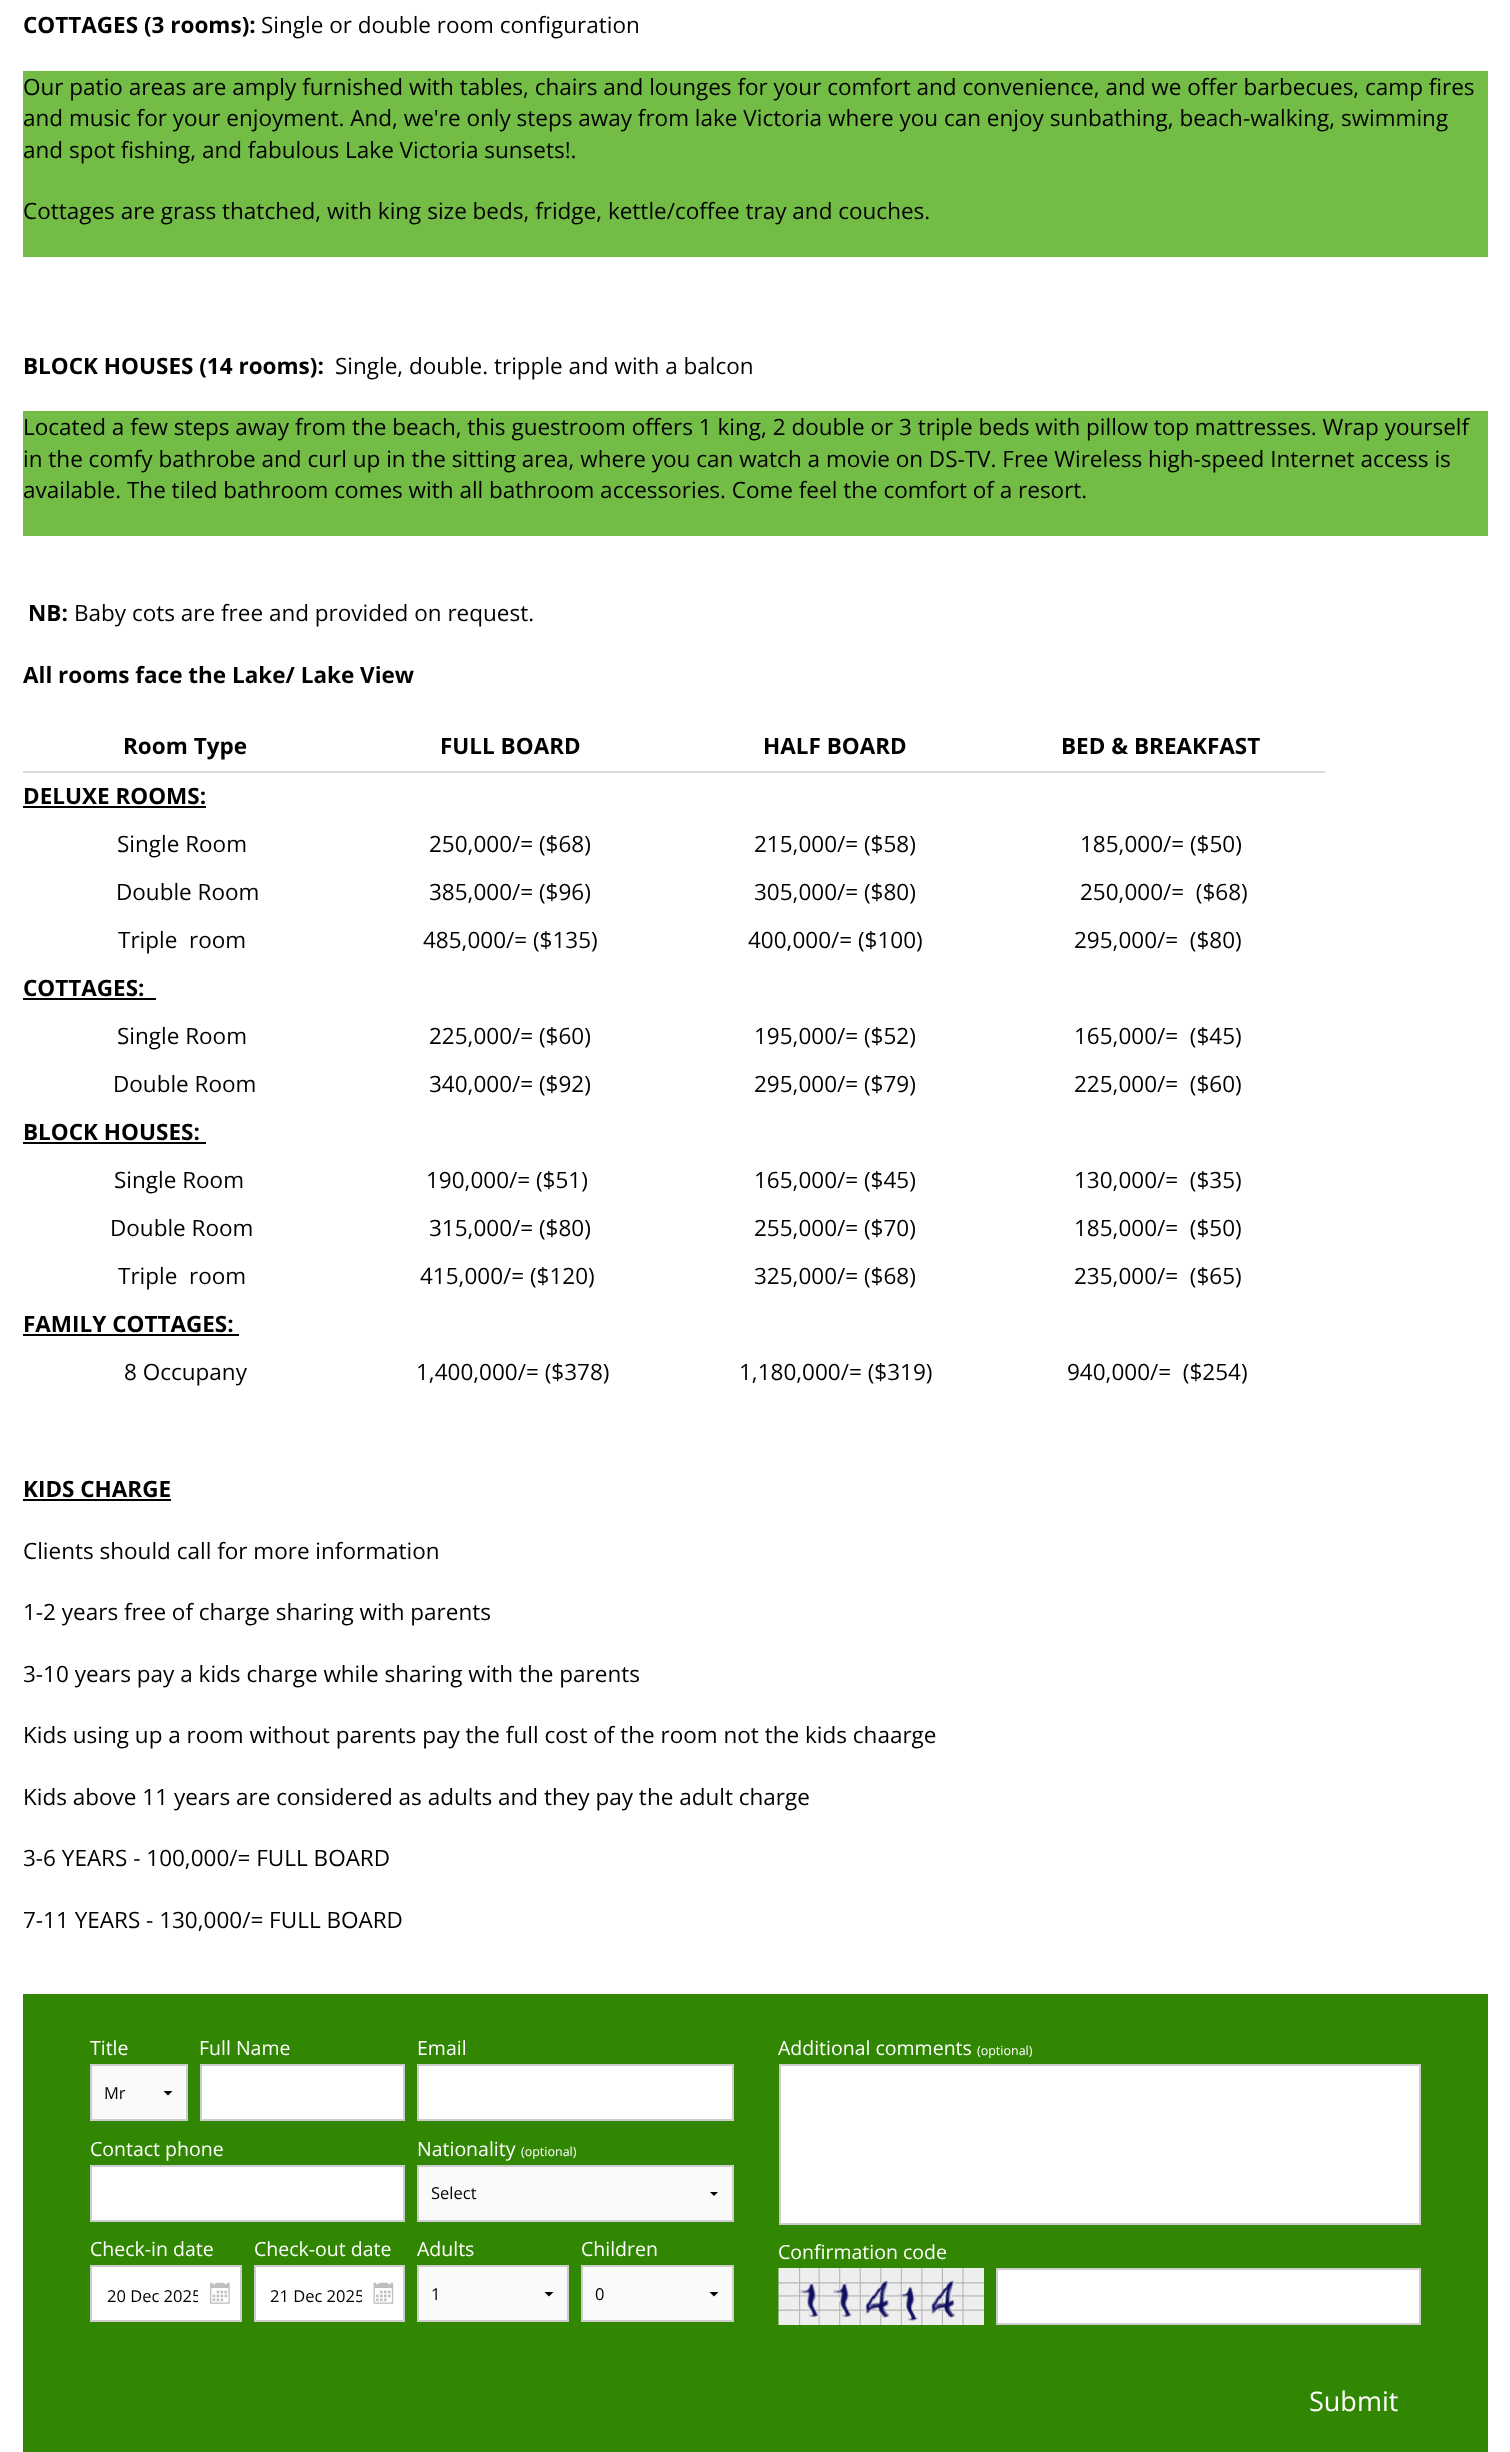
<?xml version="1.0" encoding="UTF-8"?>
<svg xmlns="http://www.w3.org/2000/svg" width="1510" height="2452">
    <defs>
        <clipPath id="clip1"><rect x="696" y="2192" width="36" height="5"/></clipPath>
        <clipPath id="clip2"><rect x="107" y="2285" width="91" height="22"/></clipPath>
        <clipPath id="clip3"><rect x="270" y="2285" width="92" height="22"/></clipPath>
    </defs>
    <rect width="100%" height="100%" fill="#FFFFFF"/>
    <text x="23" y="33" font-family="Open Sans" font-size="22.5" font-weight="700" fill="#000000">COTTAGES (3 rooms):</text>
    <text x="261" y="33" font-family="Open Sans" font-size="22.5" fill="#000000">Single or double room configuration</text>
    <rect x="23" y="71" width="1465" height="186" fill="#73BC46"/>
    <text font-family="Open Sans" font-size="22.5" fill="#000000">
        <tspan x="23" y="95">Our patio areas are amply furnished with tables, chairs and lounges for your comfort and convenience, and we offer barbecues, camp fires</tspan>
        <tspan x="23" y="126">and music for your enjoyment. And, we're only steps away from lake Victoria where you can enjoy sunbathing, beach-walking, swimming</tspan>
        <tspan x="23" y="158">and spot fishing, and fabulous Lake Victoria sunsets!.</tspan>
    </text>
    <text x="23" y="219" font-family="Open Sans" font-size="22.5" fill="#000000">Cottages are grass thatched, with king size beds, fridge, kettle/coffee tray and couches.</text>
    <text x="23" y="374" font-family="Open Sans" font-size="22.5" font-weight="700" fill="#000000">BLOCK HOUSES (14 rooms):</text>
    <text x="335" y="374" font-family="Open Sans" font-size="22.5" fill="#000000">Single, double. tripple and with a balcon</text>
    <rect x="23" y="411" width="1465" height="125" fill="#73BC46"/>
    <text font-family="Open Sans" font-size="22.5" fill="#000000">
        <tspan x="23" y="435">Located a few steps away from the beach, this guestroom offers 1 king, 2 double or 3 triple beds with pillow top mattresses. Wrap yourself</tspan>
        <tspan x="23" y="467">in the comfy bathrobe and curl up in the sitting area, where you can watch a movie on DS-TV. Free Wireless high-speed Internet access is</tspan>
        <tspan x="23" y="498">available. The tiled bathroom comes with all bathroom accessories. Come feel the comfort of a resort.</tspan>
    </text>
    <text x="28" y="621" font-family="Open Sans" font-size="22.5" font-weight="700" fill="#000000">NB:</text>
    <text x="74" y="621" font-family="Open Sans" font-size="22.5" fill="#000000">Baby cots are free and provided on request.</text>
    <text x="23" y="683" font-family="Open Sans" font-size="22.5" font-weight="700" fill="#000000">All rooms face the Lake/ Lake View</text>
    <rect x="23" y="771" width="1302" height="2" fill="#D9D9D9"/>
    <text x="123" y="754" font-family="Open Sans" font-size="22.5" font-weight="700" fill="#000000">Room Type</text>
    <text x="440" y="754" font-family="Open Sans" font-size="22.5" font-weight="700" fill="#000000">FULL BOARD</text>
    <text x="763" y="754" font-family="Open Sans" font-size="22.5" font-weight="700" fill="#000000">HALF BOARD</text>
    <text x="1061" y="754" font-family="Open Sans" font-size="22.5" font-weight="700" fill="#000000">BED &amp; BREAKFAST</text>
    <text x="23" y="804" font-family="Open Sans" font-size="22.5" font-weight="700" fill="#000000">DELUXE ROOMS:</text>
    <rect x="23" y="806" width="183" height="2" fill="#000000"/>
    <text x="117" y="852" font-family="Open Sans" font-size="22.5" fill="#000000">Single Room</text>
    <text x="429" y="852" font-family="Open Sans" font-size="22.5" fill="#000000">250,000/= ($68)</text>
    <text x="754" y="852" font-family="Open Sans" font-size="22.5" fill="#000000">215,000/= ($58)</text>
    <text x="1080" y="852" font-family="Open Sans" font-size="22.5" fill="#000000">185,000/= ($50)</text>
    <text x="116" y="900" font-family="Open Sans" font-size="22.5" fill="#000000">Double Room</text>
    <text x="429" y="900" font-family="Open Sans" font-size="22.5" fill="#000000">385,000/= ($96)</text>
    <text x="754" y="900" font-family="Open Sans" font-size="22.5" fill="#000000">305,000/= ($80)</text>
    <text x="1080" y="900" font-family="Open Sans" font-size="22.5" fill="#000000" xml:space="preserve">250,000/=  ($68)</text>
    <text x="118" y="948" font-family="Open Sans" font-size="22.5" fill="#000000" xml:space="preserve">Triple  room</text>
    <text x="423" y="948" font-family="Open Sans" font-size="22.5" fill="#000000">485,000/= ($135)</text>
    <text x="748" y="948" font-family="Open Sans" font-size="22.5" fill="#000000">400,000/= ($100)</text>
    <text x="1074" y="948" font-family="Open Sans" font-size="22.5" fill="#000000" xml:space="preserve">295,000/=  ($80)</text>
    <text x="23" y="996" font-family="Open Sans" font-size="22.5" font-weight="700" fill="#000000">COTTAGES:</text>
    <rect x="23" y="998" width="133" height="2" fill="#000000"/>
    <text x="117" y="1044" font-family="Open Sans" font-size="22.5" fill="#000000">Single Room</text>
    <text x="429" y="1044" font-family="Open Sans" font-size="22.5" fill="#000000">225,000/= ($60)</text>
    <text x="754" y="1044" font-family="Open Sans" font-size="22.5" fill="#000000">195,000/= ($52)</text>
    <text x="1074" y="1044" font-family="Open Sans" font-size="22.5" fill="#000000" xml:space="preserve">165,000/=  ($45)</text>
    <text x="113" y="1092" font-family="Open Sans" font-size="22.5" fill="#000000">Double Room</text>
    <text x="429" y="1092" font-family="Open Sans" font-size="22.5" fill="#000000">340,000/= ($92)</text>
    <text x="754" y="1092" font-family="Open Sans" font-size="22.5" fill="#000000">295,000/= ($79)</text>
    <text x="1074" y="1092" font-family="Open Sans" font-size="22.5" fill="#000000" xml:space="preserve">225,000/=  ($60)</text>
    <text x="23" y="1140" font-family="Open Sans" font-size="22.5" font-weight="700" fill="#000000">BLOCK HOUSES:</text>
    <rect x="23" y="1142" width="183" height="2" fill="#000000"/>
    <text x="114" y="1188" font-family="Open Sans" font-size="22.5" fill="#000000">Single Room</text>
    <text x="426" y="1188" font-family="Open Sans" font-size="22.5" fill="#000000">190,000/= ($51)</text>
    <text x="754" y="1188" font-family="Open Sans" font-size="22.5" fill="#000000">165,000/= ($45)</text>
    <text x="1074" y="1188" font-family="Open Sans" font-size="22.5" fill="#000000" xml:space="preserve">130,000/=  ($35)</text>
    <text x="110" y="1236" font-family="Open Sans" font-size="22.5" fill="#000000">Double Room</text>
    <text x="429" y="1236" font-family="Open Sans" font-size="22.5" fill="#000000">315,000/= ($80)</text>
    <text x="754" y="1236" font-family="Open Sans" font-size="22.5" fill="#000000">255,000/= ($70)</text>
    <text x="1074" y="1236" font-family="Open Sans" font-size="22.5" fill="#000000" xml:space="preserve">185,000/=  ($50)</text>
    <text x="118" y="1284" font-family="Open Sans" font-size="22.5" fill="#000000" xml:space="preserve">Triple  room</text>
    <text x="420" y="1284" font-family="Open Sans" font-size="22.5" fill="#000000">415,000/= ($120)</text>
    <text x="754" y="1284" font-family="Open Sans" font-size="22.5" fill="#000000">325,000/= ($68)</text>
    <text x="1074" y="1284" font-family="Open Sans" font-size="22.5" fill="#000000" xml:space="preserve">235,000/=  ($65)</text>
    <text x="23" y="1332" font-family="Open Sans" font-size="22.5" font-weight="700" fill="#000000">FAMILY COTTAGES:</text>
    <rect x="23" y="1334" width="216" height="2" fill="#000000"/>
    <text x="124" y="1380" font-family="Open Sans" font-size="22.5" fill="#000000">8 Occupany</text>
    <text x="416" y="1380" font-family="Open Sans" font-size="22.5" fill="#000000">1,400,000/= ($378)</text>
    <text x="739" y="1380" font-family="Open Sans" font-size="22.5" fill="#000000">1,180,000/= ($319)</text>
    <text x="1067" y="1380" font-family="Open Sans" font-size="22.5" fill="#000000" xml:space="preserve">940,000/=  ($254)</text>
    <text x="23" y="1497" font-family="Open Sans" font-size="22.5" font-weight="700" fill="#000000">KIDS CHARGE</text>
    <rect x="23" y="1499" width="148" height="2" fill="#000000"/>
    <text x="23" y="1559" font-family="Open Sans" font-size="22.5" fill="#000000">Clients should call for more information</text>
    <text x="23" y="1620" font-family="Open Sans" font-size="22.5" fill="#000000">1-2 years free of charge sharing with parents</text>
    <text x="23" y="1682" font-family="Open Sans" font-size="22.5" fill="#000000">3-10 years pay a kids charge while sharing with the parents</text>
    <text x="23" y="1743" font-family="Open Sans" font-size="22.5" fill="#000000">Kids using up a room without parents pay the full cost of the room not the kids chaarge</text>
    <text x="23" y="1805" font-family="Open Sans" font-size="22.5" fill="#000000">Kids above 11 years are considered as adults and they pay the adult charge</text>
    <text x="23" y="1866" font-family="Open Sans" font-size="22.5" fill="#000000">3-6 YEARS - 100,000/= FULL BOARD</text>
    <text x="23" y="1928" font-family="Open Sans" font-size="22.5" fill="#000000">7-11 YEARS - 130,000/= FULL BOARD</text>
    <rect x="23" y="1994" width="1465" height="458" fill="#318702"/>
    <text x="90" y="2055" font-family="Open Sans" font-size="19.5" fill="#FFFFFF">Title</text>
    <rect x="92" y="2066" width="94" height="53" fill="#FAFAFA"/>
    <path d="M 172.5 2091 L 168 2095.5 L 163.5 2091 Z" fill="#000000"/>
    <rect x="91" y="2065" width="96" height="55" fill="none" stroke="#CCCCCC" stroke-width="2"/>
    <text x="104" y="2099" font-family="Open Sans" font-size="16.5" fill="#000000">Mr</text>
    <text x="199" y="2055" font-family="Open Sans" font-size="19.5" fill="#FFFFFF">Full Name</text>
    <rect x="201" y="2065" width="203" height="55" fill="#FFFFFF" stroke="#CCCCCC" stroke-width="2"/>
    <text x="417" y="2055" font-family="Open Sans" font-size="19.5" fill="#FFFFFF">Email</text>
    <rect x="418" y="2065" width="315" height="55" fill="#FFFFFF" stroke="#CCCCCC" stroke-width="2"/>
    <text x="90" y="2156" font-family="Open Sans" font-size="19.5" fill="#FFFFFF">Contact phone</text>
    <rect x="91" y="2166" width="313" height="55" fill="#FFFFFF" stroke="#CCCCCC" stroke-width="2"/>
    <text x="417" y="2156" font-family="Open Sans" font-size="19.5" fill="#FFFFFF">Nationality</text>
    <text x="521" y="2156" font-family="Open Sans" font-size="12.5" fill="#FFFFFF">(optional)</text>
    <rect x="419" y="2167" width="313" height="53" fill="#FAFAFA"/>
    <g clip-path="url(#clip1)">
        <path d="M 718.5 2191.5 L 714 2196 L 709.5 2191.5 Z" fill="#000000"/>
    </g>
    <rect x="418" y="2166" width="315" height="55" fill="none" stroke="#CCCCCC" stroke-width="2"/>
    <text x="431" y="2199" font-family="Open Sans" font-size="16.5" fill="#000000">Select</text>
    <text x="90" y="2256" font-family="Open Sans" font-size="19.5" fill="#FFFFFF">Check-in date</text>
    <rect x="91" y="2266" width="150" height="55" fill="#FFFFFF" stroke="#CCCCCC" stroke-width="2"/>
    <g clip-path="url(#clip2)">
        <text x="107" y="2302" font-family="Open Sans" font-size="16.5" fill="#000000">20 Dec 2025</text>
    </g>
    <image x="210" y="2282" width="20" height="22" href="img_01.png"/>
    <text x="254" y="2256" font-family="Open Sans" font-size="19.5" fill="#FFFFFF">Check-out date</text>
    <rect x="255" y="2266" width="149" height="55" fill="#FFFFFF" stroke="#CCCCCC" stroke-width="2"/>
    <g clip-path="url(#clip3)">
        <text x="270" y="2302" font-family="Open Sans" font-size="16.5" fill="#000000">21 Dec 2025</text>
    </g>
    <image x="373" y="2282" width="21" height="22" href="img_02.png"/>
    <text x="417" y="2256" font-family="Open Sans" font-size="19.5" fill="#FFFFFF">Adults</text>
    <rect x="419" y="2267" width="148" height="53" fill="#FAFAFA"/>
    <path d="M 553.5 2292 L 549 2296.5 L 544.5 2292 Z" fill="#000000"/>
    <rect x="418" y="2266" width="150" height="55" fill="none" stroke="#CCCCCC" stroke-width="2"/>
    <text x="431" y="2300" font-family="Open Sans" font-size="16.5" fill="#000000">1</text>
    <text x="581" y="2256" font-family="Open Sans" font-size="19.5" fill="#FFFFFF">Children</text>
    <rect x="583" y="2267" width="149" height="53" fill="#FAFAFA"/>
    <path d="M 718.5 2292 L 714 2296.5 L 709.5 2292 Z" fill="#000000"/>
    <rect x="582" y="2266" width="151" height="55" fill="none" stroke="#CCCCCC" stroke-width="2"/>
    <text x="595" y="2300" font-family="Open Sans" font-size="16.5" fill="#000000">0</text>
    <text x="778" y="2055" font-family="Open Sans" font-size="19.5" fill="#FFFFFF">Additional comments</text>
    <text x="977" y="2055" font-family="Open Sans" font-size="12.5" fill="#FFFFFF">(optional)</text>
    <rect x="780" y="2065" width="640" height="159" fill="#FFFFFF" stroke="#CCCCCC" stroke-width="2"/>
    <text x="778" y="2259" font-family="Open Sans" font-size="19.5" fill="#FFFFFF">Confirmation code</text>
    <image x="778" y="2268" width="206" height="57" href="img_03.png"/>
    <rect x="997" y="2269" width="423" height="55" fill="#FFFFFF" stroke="#CCCCCC" stroke-width="2"/>
    <text x="1309" y="2411" font-family="Open Sans" font-size="27" fill="#FFFFFF">Submit</text>
</svg>
